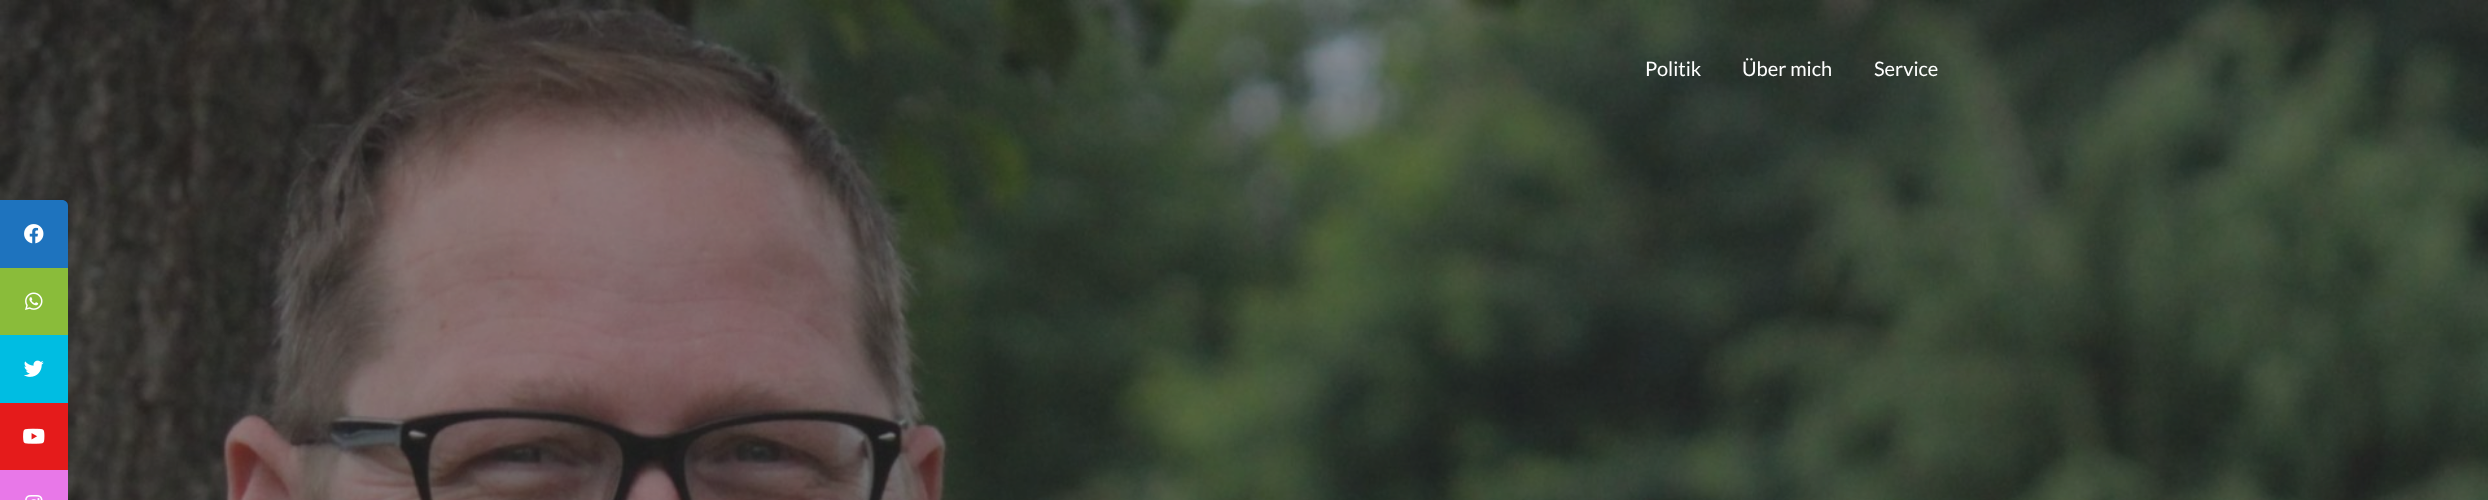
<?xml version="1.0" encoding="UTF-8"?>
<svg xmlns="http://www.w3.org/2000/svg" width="2488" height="500">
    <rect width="100%" height="100%" fill="#FFFFFF"/>
    <image x="0" y="0" width="2488" height="500" href="img_01.png"/>
    <text x="1645" y="76" font-family="Lato" font-size="20" fill="#FFFFFF">Politik</text>
    <text x="1742" y="76" font-family="Lato" font-size="20" fill="#FFFFFF">Über mich</text>
    <text x="1874" y="76" font-family="Lato" font-size="20" fill="#FFFFFF">Service</text>
    <path d="M 0 200 H 62 C 65.5 200 68 202.5 68 206 V 268 H 0 Z" fill="#1E73BE"/>
    <image x="24" y="224" width="20" height="20" href="img_02.png"/>
    <rect x="0" y="268" width="68" height="67" fill="#8ABC3A"/>
    <image x="25" y="292" width="18" height="18" href="img_03.png"/>
    <rect x="0" y="335" width="68" height="68" fill="#00BDE2"/>
    <image x="24" y="360" width="20" height="17" href="img_04.png"/>
    <rect x="0" y="403" width="68" height="67" fill="#E51B1B"/>
    <image x="23" y="428" width="22" height="16" href="img_05.png"/>
    <rect x="0" y="470" width="68" height="30" fill="#E878E8"/>
    <image x="25" y="495" width="18" height="5" href="img_06.png"/>
</svg>
